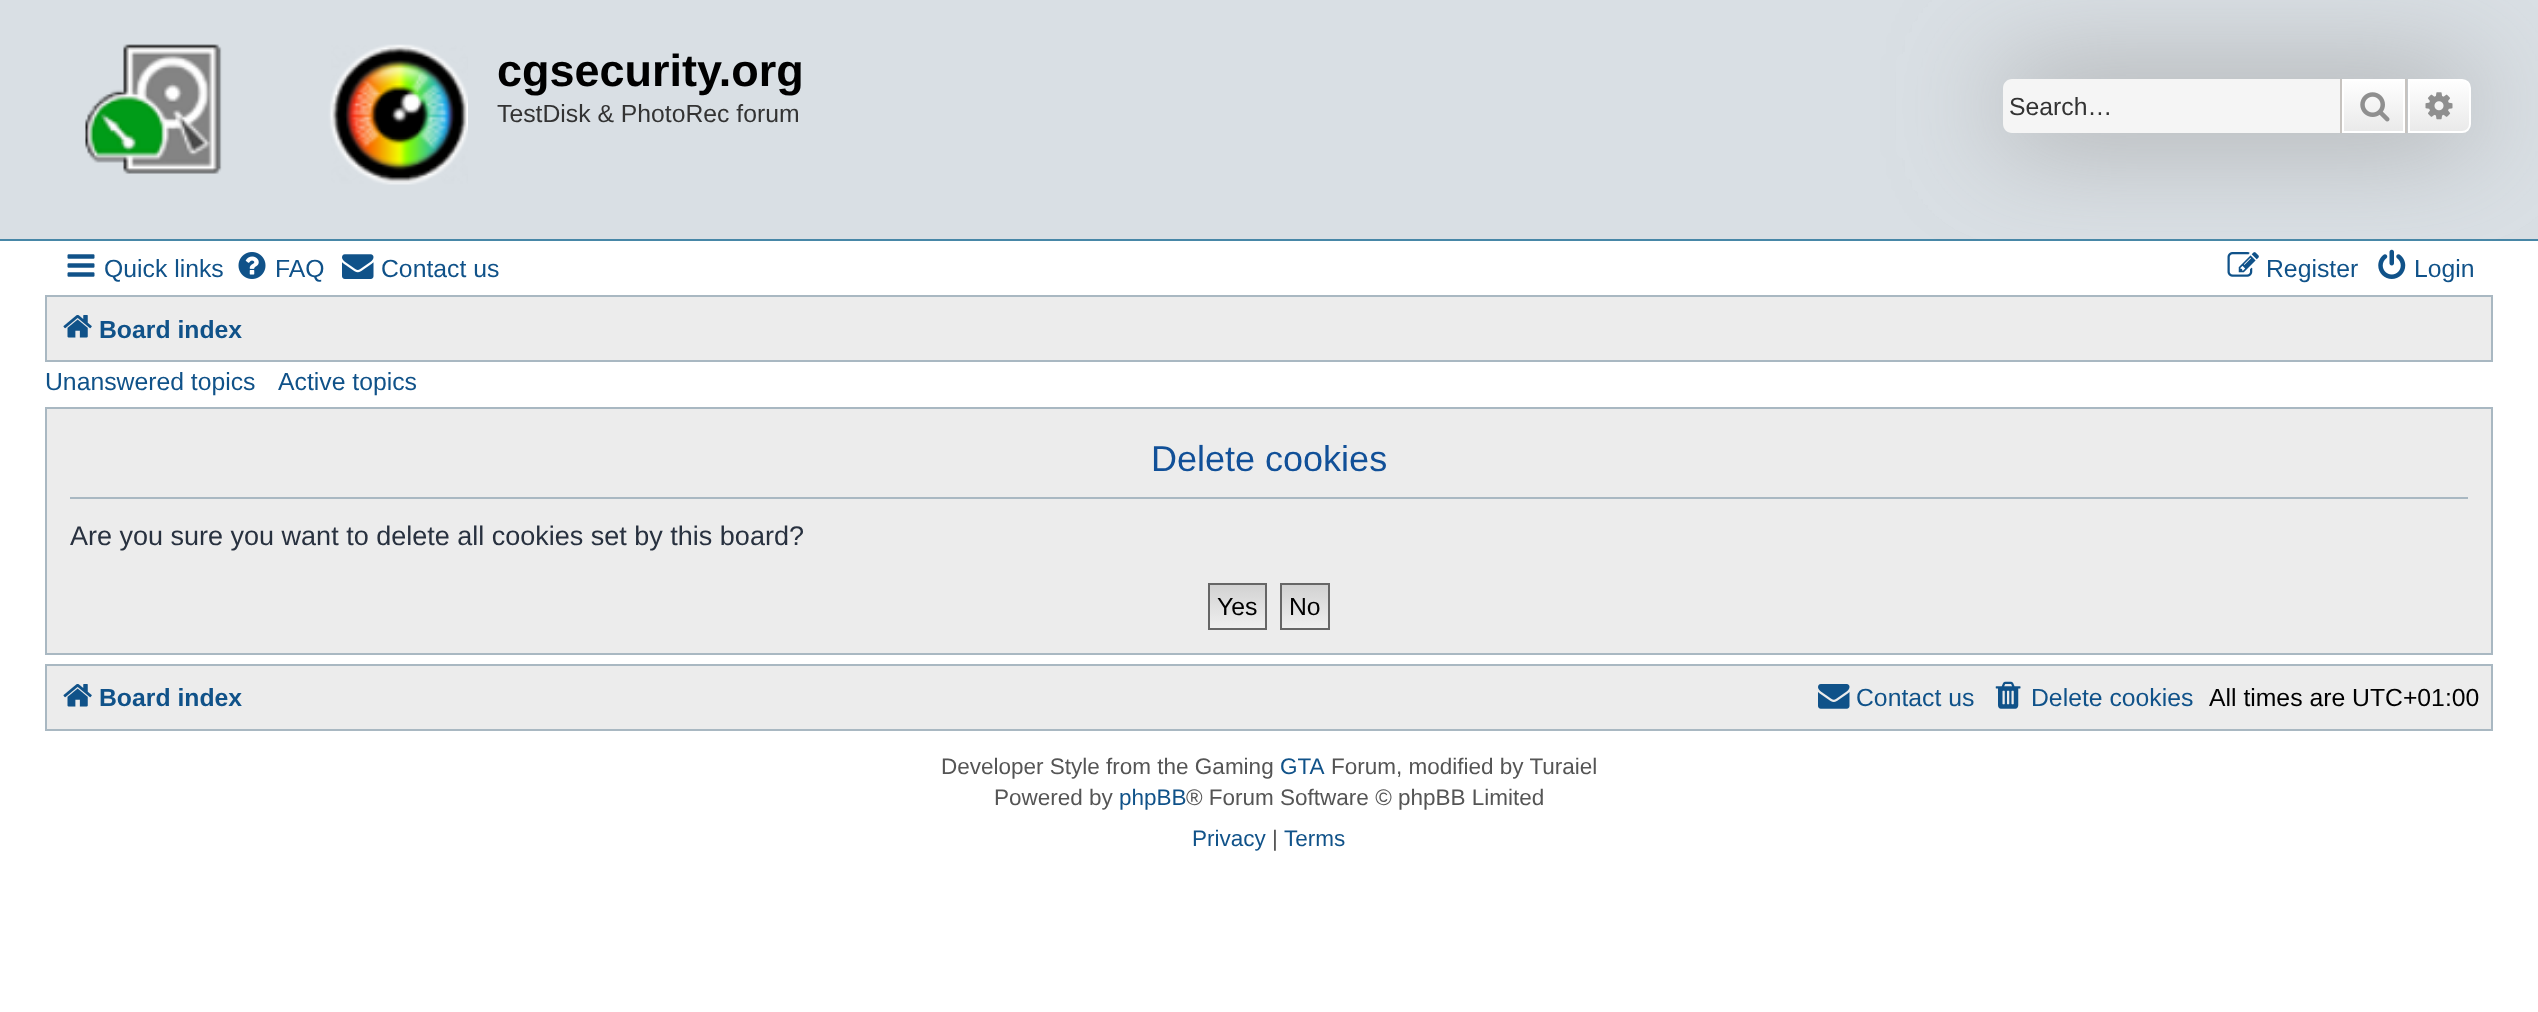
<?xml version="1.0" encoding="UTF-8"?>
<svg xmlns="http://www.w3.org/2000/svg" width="2538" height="1012">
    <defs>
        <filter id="blur1" x="-50%" y="-200%" width="200%" height="500%"><feGaussianBlur stdDeviation="56"/></filter>
        <linearGradient id="g1" gradientUnits="userSpaceOnUse" x1="2374" y1="79" x2="2374" y2="133"><stop offset="0" stop-color="#FFFFFF"/><stop offset="1" stop-color="#E9E9E9"/></linearGradient>
        <linearGradient id="g2" gradientUnits="userSpaceOnUse" x1="2439" y1="79" x2="2439" y2="133"><stop offset="0" stop-color="#FFFFFF"/><stop offset="1" stop-color="#E9E9E9"/></linearGradient>
        <linearGradient id="g3" gradientUnits="userSpaceOnUse" x1="1238" y1="585" x2="1238" y2="628"><stop offset="0" stop-color="#D2D2D2"/><stop offset="1" stop-color="#EFEFEF"/></linearGradient>
        <linearGradient id="g4" gradientUnits="userSpaceOnUse" x1="1305" y1="585" x2="1305" y2="628"><stop offset="0" stop-color="#D2D2D2"/><stop offset="1" stop-color="#EFEFEF"/></linearGradient>
    </defs>
    <rect width="100%" height="100%" fill="#FFFFFF"/>
    <rect x="0" y="0" width="2538" height="239" fill="#D9DFE4"/>
    <rect x="0" y="239" width="2538" height="2" fill="#4787A7"/>
    <image x="85" y="44" width="383" height="141" href="img_01.png"/>
    <text x="497" y="86" font-family="Liberation Sans" font-size="45" font-weight="700" fill="#000000">cgsecurity.org</text>
    <text x="497" y="122" font-family="Liberation Sans" font-size="24.75" fill="#333333">TestDisk &amp; PhotoRec forum</text>
    <rect x="46" y="296" width="2446" height="65" fill="#ECECEC" stroke="#A9B8C2" stroke-width="2"/>
    <rect x="2003" y="79" width="468" height="54" rx="9" fill="#999999" filter="url(#blur1)"/>
    <path d="M 2012 79 H 2340 V 133 H 2012 C 2007 133 2003 129 2003 124 V 88 C 2003 83 2007 79 2012 79 Z" fill="#F5F5F5"/>
    <text x="2009" y="115" font-family="Liberation Sans" font-size="24.75" fill="#333333">Search…</text>
    <rect x="2344" y="81" width="59" height="50" fill="url(#g1)"/>
    <rect x="2343" y="80" width="61" height="52" fill="none" stroke="#FFFFFF" stroke-width="2"/>
    <rect x="2405" y="79" width="2" height="54" fill="#C7C3BF"/>
    <rect x="2340" y="79" width="2" height="54" fill="#C7C3BF"/>
    <image x="2360" y="92" width="30" height="30" href="img_02.png"/>
    <path d="M 2409 80 H 2462 C 2466.5 80 2470 83.5 2470 88 V 124 C 2470 128.5 2466.5 132 2462 132 H 2409 Z" fill="url(#g2)" stroke="#FFFFFF" stroke-width="2"/>
    <image x="2425" y="92" width="28" height="28" href="img_03.png"/>
    <image x="67" y="254" width="28" height="23" href="img_04.png"/>
    <text x="104" y="277" font-family="Liberation Sans" font-size="24.75" fill="#105289">Quick links</text>
    <image x="238" y="252" width="28" height="27" href="img_05.png"/>
    <text x="275" y="277" font-family="Liberation Sans" font-size="24.75" fill="#105289">FAQ</text>
    <image x="342" y="254" width="32" height="25" href="img_06.png"/>
    <text x="381" y="277" font-family="Liberation Sans" font-size="24.75" fill="#105289">Contact us</text>
    <image x="2227" y="252" width="32" height="25" href="img_07.png"/>
    <text x="2266" y="277" font-family="Liberation Sans" font-size="24.75" fill="#105289">Register</text>
    <image x="2378" y="249" width="28" height="30" href="img_08.png"/>
    <text x="2414" y="277" font-family="Liberation Sans" font-size="24.75" fill="#105289">Login</text>
    <image x="63" y="315" width="29" height="23" href="img_09.png"/>
    <text x="99" y="338" font-family="Liberation Sans" font-size="24.75" font-weight="700" fill="#105289">Board index</text>
    <text x="45" y="390" font-family="Liberation Sans" font-size="24.75" fill="#105289">Unanswered topics</text>
    <text x="278" y="390" font-family="Liberation Sans" font-size="24.75" fill="#105289">Active topics</text>
    <rect x="46" y="408" width="2446" height="246" fill="#ECECEC" stroke="#A9B8C2" stroke-width="2"/>
    <rect x="70" y="497" width="2398" height="2" fill="#A9B8C2"/>
    <text x="1151" y="471" font-family="Liberation Sans" font-size="36" fill="#115098">Delete cookies</text>
    <text x="70" y="545" font-family="Liberation Sans" font-size="27" fill="#28313F">Are you sure you want to delete all cookies set by this board?</text>
    <rect x="1210" y="585" width="55" height="43" fill="url(#g3)"/>
    <rect x="1209" y="584" width="57" height="45" fill="none" stroke="#666666" stroke-width="2"/>
    <text x="1217" y="615" font-family="Liberation Sans" font-size="24.75" fill="#000000">Yes</text>
    <rect x="1282" y="585" width="46" height="43" fill="url(#g4)"/>
    <rect x="1281" y="584" width="48" height="45" fill="none" stroke="#666666" stroke-width="2"/>
    <text x="1289" y="615" font-family="Liberation Sans" font-size="24.75" fill="#000000">No</text>
    <rect x="46" y="665" width="2446" height="65" fill="#ECECEC" stroke="#A9B8C2" stroke-width="2"/>
    <image x="63" y="684" width="29" height="23" href="img_09.png"/>
    <text x="99" y="706" font-family="Liberation Sans" font-size="24.75" font-weight="700" fill="#105289">Board index</text>
    <image x="1818" y="684" width="32" height="25" href="img_10.png"/>
    <text x="1856" y="706" font-family="Liberation Sans" font-size="24.75" fill="#105289">Contact us</text>
    <image x="1995" y="681" width="26" height="28" href="img_11.png"/>
    <text x="2031" y="706" font-family="Liberation Sans" font-size="24.75" fill="#105289">Delete cookies</text>
    <text x="2209" y="706" font-family="Liberation Sans" font-size="24.75" fill="#000000">All times are UTC+01:00</text>
    <text x="941" y="774" font-family="Liberation Sans" font-size="22.5" fill="#555555">Developer Style from the Gaming</text>
    <text x="1280" y="774" font-family="Liberation Sans" font-size="22.5" fill="#105289">GTA</text>
    <text x="1331" y="774" font-family="Liberation Sans" font-size="22.5" fill="#555555">Forum, modified by Turaiel</text>
    <text x="994" y="805" font-family="Liberation Sans" font-size="22.5" fill="#555555">Powered by</text>
    <text x="1119" y="805" font-family="Liberation Sans" font-size="22.5" fill="#105289">phpBB</text>
    <text x="1186" y="805" font-family="Liberation Sans" font-size="22.5" fill="#555555">® Forum Software © phpBB Limited</text>
    <text x="1192" y="846" font-family="Liberation Sans" font-size="22.5" fill="#105289">Privacy</text>
    <text x="1272" y="846" font-family="Liberation Sans" font-size="22.5" fill="#555555">|</text>
    <text x="1284" y="846" font-family="Liberation Sans" font-size="22.5" fill="#105289">Terms</text>
</svg>
